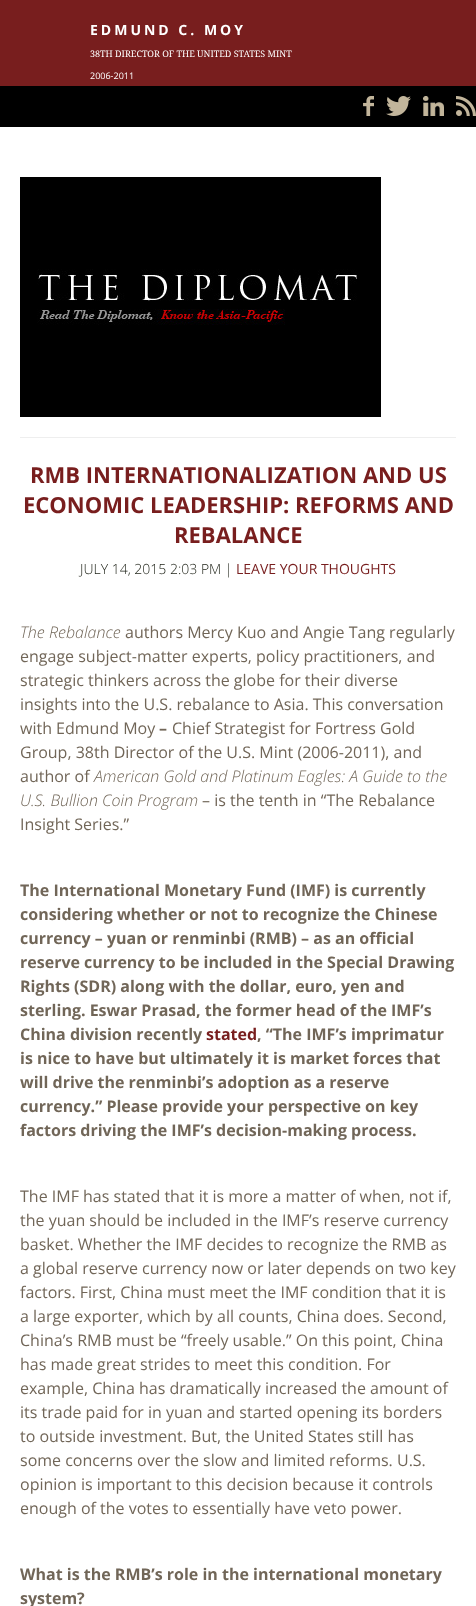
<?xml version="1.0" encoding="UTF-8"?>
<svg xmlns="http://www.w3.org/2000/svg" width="476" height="1606">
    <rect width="100%" height="100%" fill="#FFFFFF"/>
    <rect x="0" y="0" width="476" height="86" fill="#781E1E"/>
    <text x="90" y="35" font-family="Open Sans" font-size="14" font-weight="700" letter-spacing="3" fill="#FFFFFF">EDMUND C. MOY</text>
    <text x="90" y="57" font-family="Droid Serif" font-size="9" fill="#FFFFFF">38TH DIRECTOR OF THE UNITED STATES MINT</text>
    <text x="90" y="79" font-family="Open Sans" font-size="9" fill="#FFFFFF">2006-2011</text>
    <rect x="0" y="86" width="476" height="41" fill="#000000"/>
    <image x="363" y="96" width="11" height="20" href="img_01.png"/>
    <image x="386" y="96" width="25" height="20" href="img_02.png"/>
    <image x="423" y="96" width="21" height="20" href="img_03.png"/>
    <image x="456" y="96" width="20" height="20" href="img_04.png"/>
    <image x="20" y="177" width="361" height="240" href="img_05.png"/>
    <rect x="20" y="437" width="436" height="1" fill="#EEEEEE"/>
    <text x="30" y="483" font-family="Open Sans" font-size="22" font-weight="700" fill="#781E1E">RMB INTERNATIONALIZATION AND US</text>
    <text x="23" y="513" font-family="Open Sans" font-size="22" font-weight="700" fill="#781E1E">ECONOMIC LEADERSHIP: REFORMS AND</text>
    <text x="174" y="543" font-family="Open Sans" font-size="22" font-weight="700" fill="#781E1E">REBALANCE</text>
    <text x="80" y="574" font-family="Open Sans" font-size="14" font-weight="300" fill="#1C2015">JULY 14, 2015 2:03 PM |</text>
    <text x="236" y="574" font-family="Open Sans" font-size="14" fill="#781E1E">LEAVE YOUR THOUGHTS</text>
    <text x="20" y="638" font-family="Open Sans" font-size="16" font-weight="300" font-style="italic" fill="#716658">The Rebalance</text>
    <text x="125" y="638" font-family="Open Sans" font-size="16" fill="#716658">authors Mercy Kuo and Angie Tang regularly</text>
    <text font-family="Open Sans" font-size="16" fill="#716658">
        <tspan x="20" y="662">engage subject-matter experts, policy practitioners, and</tspan>
        <tspan x="20" y="686">strategic thinkers across the globe for their diverse</tspan>
        <tspan x="20" y="710">insights into the U.S. rebalance to Asia. This conversation</tspan>
        <tspan x="20" y="734">with Edmund Moy</tspan>
    </text>
    <text x="159" y="734" font-family="Open Sans" font-size="16" font-weight="700" fill="#716658">–</text>
    <text x="172" y="734" font-family="Open Sans" font-size="16" fill="#716658">Chief Strategist for Fortress Gold</text>
    <text font-family="Open Sans" font-size="16" fill="#716658">
        <tspan x="20" y="758">Group, 38th Director of the U.S. Mint (2006-2011), and</tspan>
        <tspan x="20" y="782">author of</tspan>
    </text>
    <text x="94" y="782" font-family="Open Sans" font-size="16" font-weight="300" font-style="italic" fill="#716658">American Gold and Platinum Eagles: A Guide to the</text>
    <text x="20" y="806" font-family="Open Sans" font-size="16" font-weight="300" font-style="italic" fill="#716658">U.S. Bullion Coin Program</text>
    <text x="202" y="806" font-family="Open Sans" font-size="16" fill="#716658">– is the tenth in “The Rebalance</text>
    <text x="20" y="830" font-family="Open Sans" font-size="16" fill="#716658">Insight Series.”</text>
    <text font-family="Open Sans" font-size="16" font-weight="700" fill="#716658">
        <tspan x="20" y="896">The International Monetary Fund (IMF) is currently</tspan>
        <tspan x="20" y="920">considering whether or not to recognize the Chinese</tspan>
        <tspan x="20" y="944">currency – yuan or renminbi (RMB) – as an official</tspan>
        <tspan x="20" y="968">reserve currency to be included in the Special Drawing</tspan>
        <tspan x="20" y="992">Rights (SDR) along with the dollar, euro, yen and</tspan>
        <tspan x="20" y="1016">sterling. Eswar Prasad, the former head of the IMF’s</tspan>
        <tspan x="20" y="1040">China division recently</tspan>
    </text>
    <text x="206" y="1040" font-family="Open Sans" font-size="16" font-weight="700" fill="#781E1E">stated</text>
    <text x="257" y="1040" font-family="Open Sans" font-size="16" font-weight="700" fill="#716658">, “The IMF’s imprimatur</text>
    <text font-family="Open Sans" font-size="16" font-weight="700" fill="#716658">
        <tspan x="20" y="1064">is nice to have but ultimately it is market forces that</tspan>
        <tspan x="20" y="1088">will drive the renminbi’s adoption as a reserve</tspan>
        <tspan x="20" y="1112">currency.” Please provide your perspective on key</tspan>
        <tspan x="20" y="1136">factors driving the IMF’s decision-making process.</tspan>
    </text>
    <text font-family="Open Sans" font-size="16" fill="#716658">
        <tspan x="20" y="1202">The IMF has stated that it is more a matter of when, not if,</tspan>
        <tspan x="20" y="1226">the yuan should be included in the IMF’s reserve currency</tspan>
        <tspan x="20" y="1250">basket. Whether the IMF decides to recognize the RMB as</tspan>
        <tspan x="20" y="1274">a global reserve currency now or later depends on two key</tspan>
        <tspan x="20" y="1298">factors. First, China must meet the IMF condition that it is</tspan>
        <tspan x="20" y="1322">a large exporter, which by all counts, China does. Second,</tspan>
        <tspan x="20" y="1346">China’s RMB must be “freely usable.” On this point, China</tspan>
        <tspan x="20" y="1370">has made great strides to meet this condition. For</tspan>
        <tspan x="20" y="1394">example, China has dramatically increased the amount of</tspan>
        <tspan x="20" y="1418">its trade paid for in yuan and started opening its borders</tspan>
        <tspan x="20" y="1442">to outside investment. But, the United States still has</tspan>
        <tspan x="20" y="1466">some concerns over the slow and limited reforms. U.S.</tspan>
        <tspan x="20" y="1490">opinion is important to this decision because it controls</tspan>
        <tspan x="20" y="1514">enough of the votes to essentially have veto power.</tspan>
    </text>
    <text font-family="Open Sans" font-size="16" font-weight="700" fill="#716658">
        <tspan x="20" y="1580">What is the RMB’s role in the international monetary</tspan>
        <tspan x="20" y="1604">system?</tspan>
    </text>
</svg>
